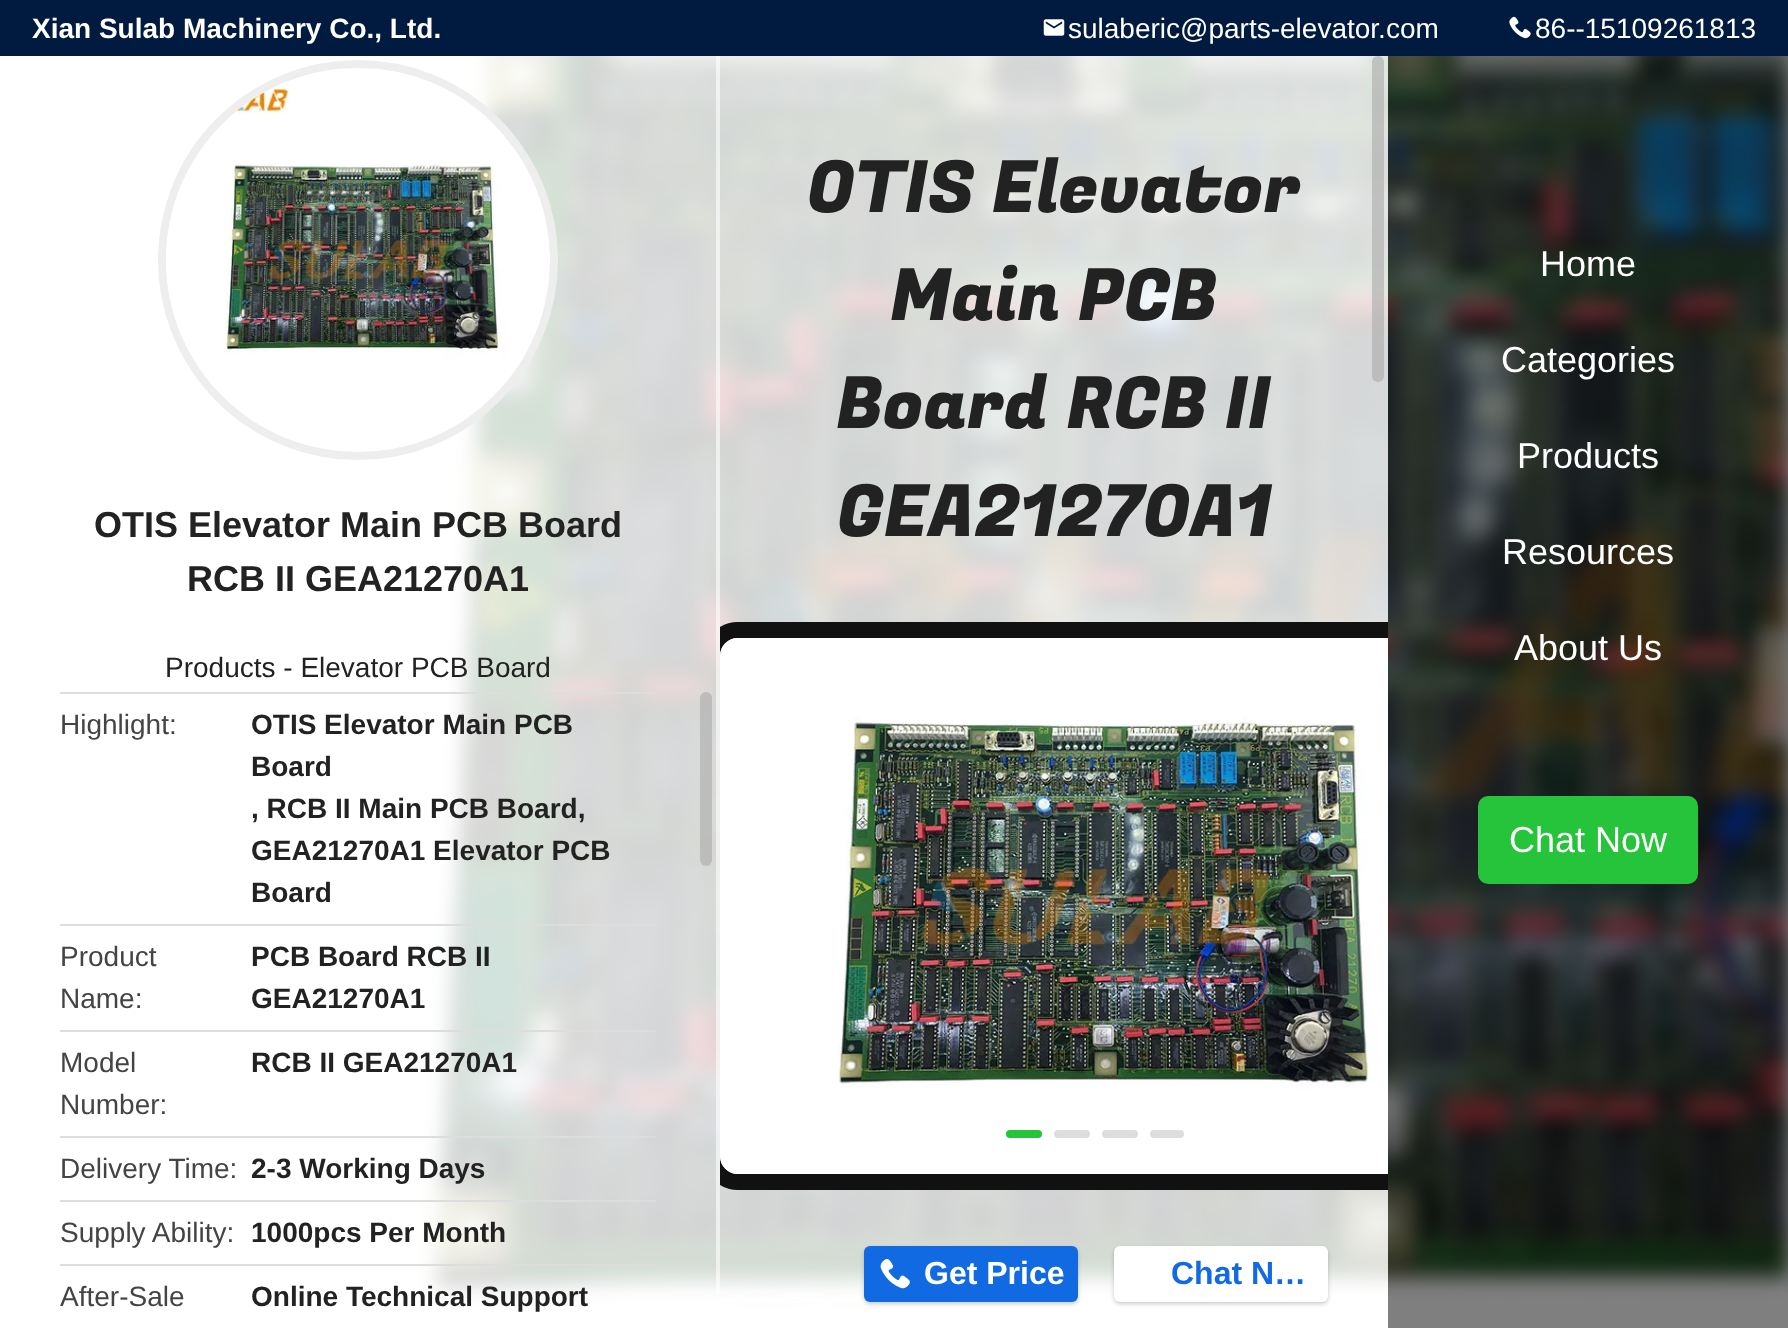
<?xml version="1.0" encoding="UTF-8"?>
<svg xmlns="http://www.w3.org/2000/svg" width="1788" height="1328">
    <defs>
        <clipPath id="clip1"><rect x="720" y="56" width="668" height="1272"/></clipPath>
        <filter id="blur1" x="-50%" y="-200%" width="200%" height="500%"><feGaussianBlur stdDeviation="2"/></filter>
    </defs>
    <rect width="100%" height="100%" fill="#FFFFFF"/>
    <rect x="0" y="0" width="1788" height="56" fill="#001B3F"/>
    <text x="32" y="38" font-family="Liberation Sans" font-size="28" font-weight="700" fill="#FFFFFF">Xian Sulab Machinery Co., Ltd.</text>
    <image x="1043" y="19" width="22" height="17" href="img_01.png"/>
    <text x="1068" y="38" font-family="Liberation Sans" font-size="28" fill="#FFFFFF">sulaberic@parts-elevator.com</text>
    <image x="1509" y="16" width="22" height="23" href="img_02.png"/>
    <text x="1535" y="38" font-family="Liberation Sans" font-size="28" fill="#FFFFFF">86--15109261813</text>
    <image x="417" y="56" width="1371" height="1253" href="img_03.png"/>
    <rect x="417" y="56" width="303" height="1253" fill="#FFFFFF" fill-opacity="0.8"/>
    <rect x="716" y="56" width="4" height="1238" fill="#FFFFFF" fill-opacity="0.6"/>
    <circle cx="358" cy="260" r="196" fill="none" stroke="#EEEEEE" stroke-width="8"/>
    <image x="166" y="69" width="384" height="378" href="img_04.png"/>
    <text x="94" y="537" font-family="Liberation Sans" font-size="36" font-weight="700" fill="#222222">OTIS Elevator Main PCB Board</text>
    <text x="187" y="591" font-family="Liberation Sans" font-size="36" font-weight="700" fill="#222222">RCB II GEA21270A1</text>
    <text x="165" y="677" font-family="Liberation Sans" font-size="28" fill="#222222">Products - Elevator PCB Board</text>
    <rect x="60" y="692" width="596" height="2" fill="#DDDDDD"/>
    <text x="60" y="734" font-family="Liberation Sans" font-size="28" fill="#444444">Highlight:</text>
    <text font-family="Liberation Sans" font-size="28" font-weight="700" fill="#222222">
        <tspan x="251" y="734">OTIS Elevator Main PCB</tspan>
        <tspan x="251" y="776">Board</tspan>
        <tspan x="251" y="818">, RCB II Main PCB Board,</tspan>
        <tspan x="251" y="860">GEA21270A1 Elevator PCB</tspan>
        <tspan x="251" y="902">Board</tspan>
    </text>
    <rect x="60" y="924" width="596" height="2" fill="#DDDDDD"/>
    <text font-family="Liberation Sans" font-size="28" fill="#444444">
        <tspan x="60" y="966">Product</tspan>
        <tspan x="60" y="1008">Name:</tspan>
    </text>
    <text font-family="Liberation Sans" font-size="28" font-weight="700" fill="#222222">
        <tspan x="251" y="966">PCB Board RCB II</tspan>
        <tspan x="251" y="1008">GEA21270A1</tspan>
    </text>
    <rect x="60" y="1030" width="596" height="2" fill="#DDDDDD"/>
    <text font-family="Liberation Sans" font-size="28" fill="#444444">
        <tspan x="60" y="1072">Model</tspan>
        <tspan x="60" y="1114">Number:</tspan>
    </text>
    <text x="251" y="1072" font-family="Liberation Sans" font-size="28" font-weight="700" fill="#222222">RCB II GEA21270A1</text>
    <rect x="60" y="1136" width="596" height="2" fill="#DDDDDD"/>
    <text x="60" y="1178" font-family="Liberation Sans" font-size="28" fill="#444444">Delivery Time:</text>
    <text x="251" y="1178" font-family="Liberation Sans" font-size="28" font-weight="700" fill="#222222">2-3 Working Days</text>
    <rect x="60" y="1200" width="596" height="2" fill="#DDDDDD"/>
    <text x="60" y="1242" font-family="Liberation Sans" font-size="28" fill="#444444">Supply Ability:</text>
    <text x="251" y="1242" font-family="Liberation Sans" font-size="28" font-weight="700" fill="#222222">1000pcs Per Month</text>
    <rect x="60" y="1264" width="596" height="2" fill="#DDDDDD"/>
    <text x="60" y="1306" font-family="Liberation Sans" font-size="28" fill="#444444">After-Sale</text>
    <text x="251" y="1306" font-family="Liberation Sans" font-size="28" font-weight="700" fill="#222222">Online Technical Support</text>
    <rect x="700" y="692" width="12" height="174" rx="6" fill="#AAAAAA" fill-opacity="0.6"/>
    <rect x="720" y="56" width="668" height="1247" fill="#FFFFFF" fill-opacity="0.8"/>
    <text x="807" y="212" font-family="Fugaz One" font-size="72" fill="#222222">OTIS Elevator</text>
    <text x="890" y="320" font-family="Fugaz One" font-size="72" fill="#222222">Main PCB</text>
    <text x="836" y="428" font-family="Fugaz One" font-size="72" fill="#222222">Board RCB II</text>
    <text x="837" y="536" font-family="Fugaz One" font-size="72" fill="#222222">GEA21270A1</text>
    <rect x="1372" y="56" width="12" height="326" rx="6" fill="#AAAAAA" fill-opacity="0.6"/>
    <rect x="1388" y="56" width="400" height="1272" fill="#000000" fill-opacity="0.5"/>
    <rect x="1478" y="796" width="220" height="88" rx="10" fill="#26C43A"/>
    <g clip-path="url(#clip1)">
        <rect x="712" y="630" width="766" height="552" rx="26" fill="none" stroke="#111111" stroke-width="16"/>
    </g>
    <image x="720" y="638" width="668" height="536" href="img_05.png"/>
    <rect x="1006" y="1130" width="36" height="8" rx="4" fill="#26C43A"/>
    <rect x="1054" y="1130" width="36" height="8" rx="4" fill="#DDDDDD"/>
    <rect x="1102" y="1130" width="36" height="8" rx="4" fill="#DDDDDD"/>
    <rect x="1150" y="1130" width="34" height="8" rx="4" fill="#DDDDDD"/>
    <rect x="864" y="1248" width="214" height="56" rx="6" fill="#000000" fill-opacity="0.2" filter="url(#blur1)"/>
    <rect x="864" y="1246" width="214" height="56" rx="6" fill="#126AE2"/>
    <image x="880" y="1259" width="30" height="30" href="img_06.png"/>
    <text x="924" y="1284" font-family="Liberation Sans" font-size="32" font-weight="700" fill="#FFFFFF">Get Price</text>
    <rect x="1114" y="1248" width="214" height="56" rx="6" fill="#000000" fill-opacity="0.2" filter="url(#blur1)"/>
    <rect x="1114" y="1246" width="214" height="56" rx="6" fill="#FFFFFF"/>
    <text x="1171" y="1284" font-family="Liberation Sans" font-size="32" font-weight="700" fill="#126AE2">Chat N…</text>
    <text x="1540" y="276" font-family="Liberation Sans" font-size="36" fill="#FFFFFF">Home</text>
    <text x="1501" y="372" font-family="Liberation Sans" font-size="36" fill="#FFFFFF">Categories</text>
    <text x="1517" y="468" font-family="Liberation Sans" font-size="36" fill="#FFFFFF">Products</text>
    <text x="1502" y="564" font-family="Liberation Sans" font-size="36" fill="#FFFFFF">Resources</text>
    <text x="1514" y="660" font-family="Liberation Sans" font-size="36" fill="#FFFFFF">About Us</text>
    <text x="1509" y="852" font-family="Liberation Sans" font-size="36" fill="#FFFFFF">Chat Now</text>
</svg>
